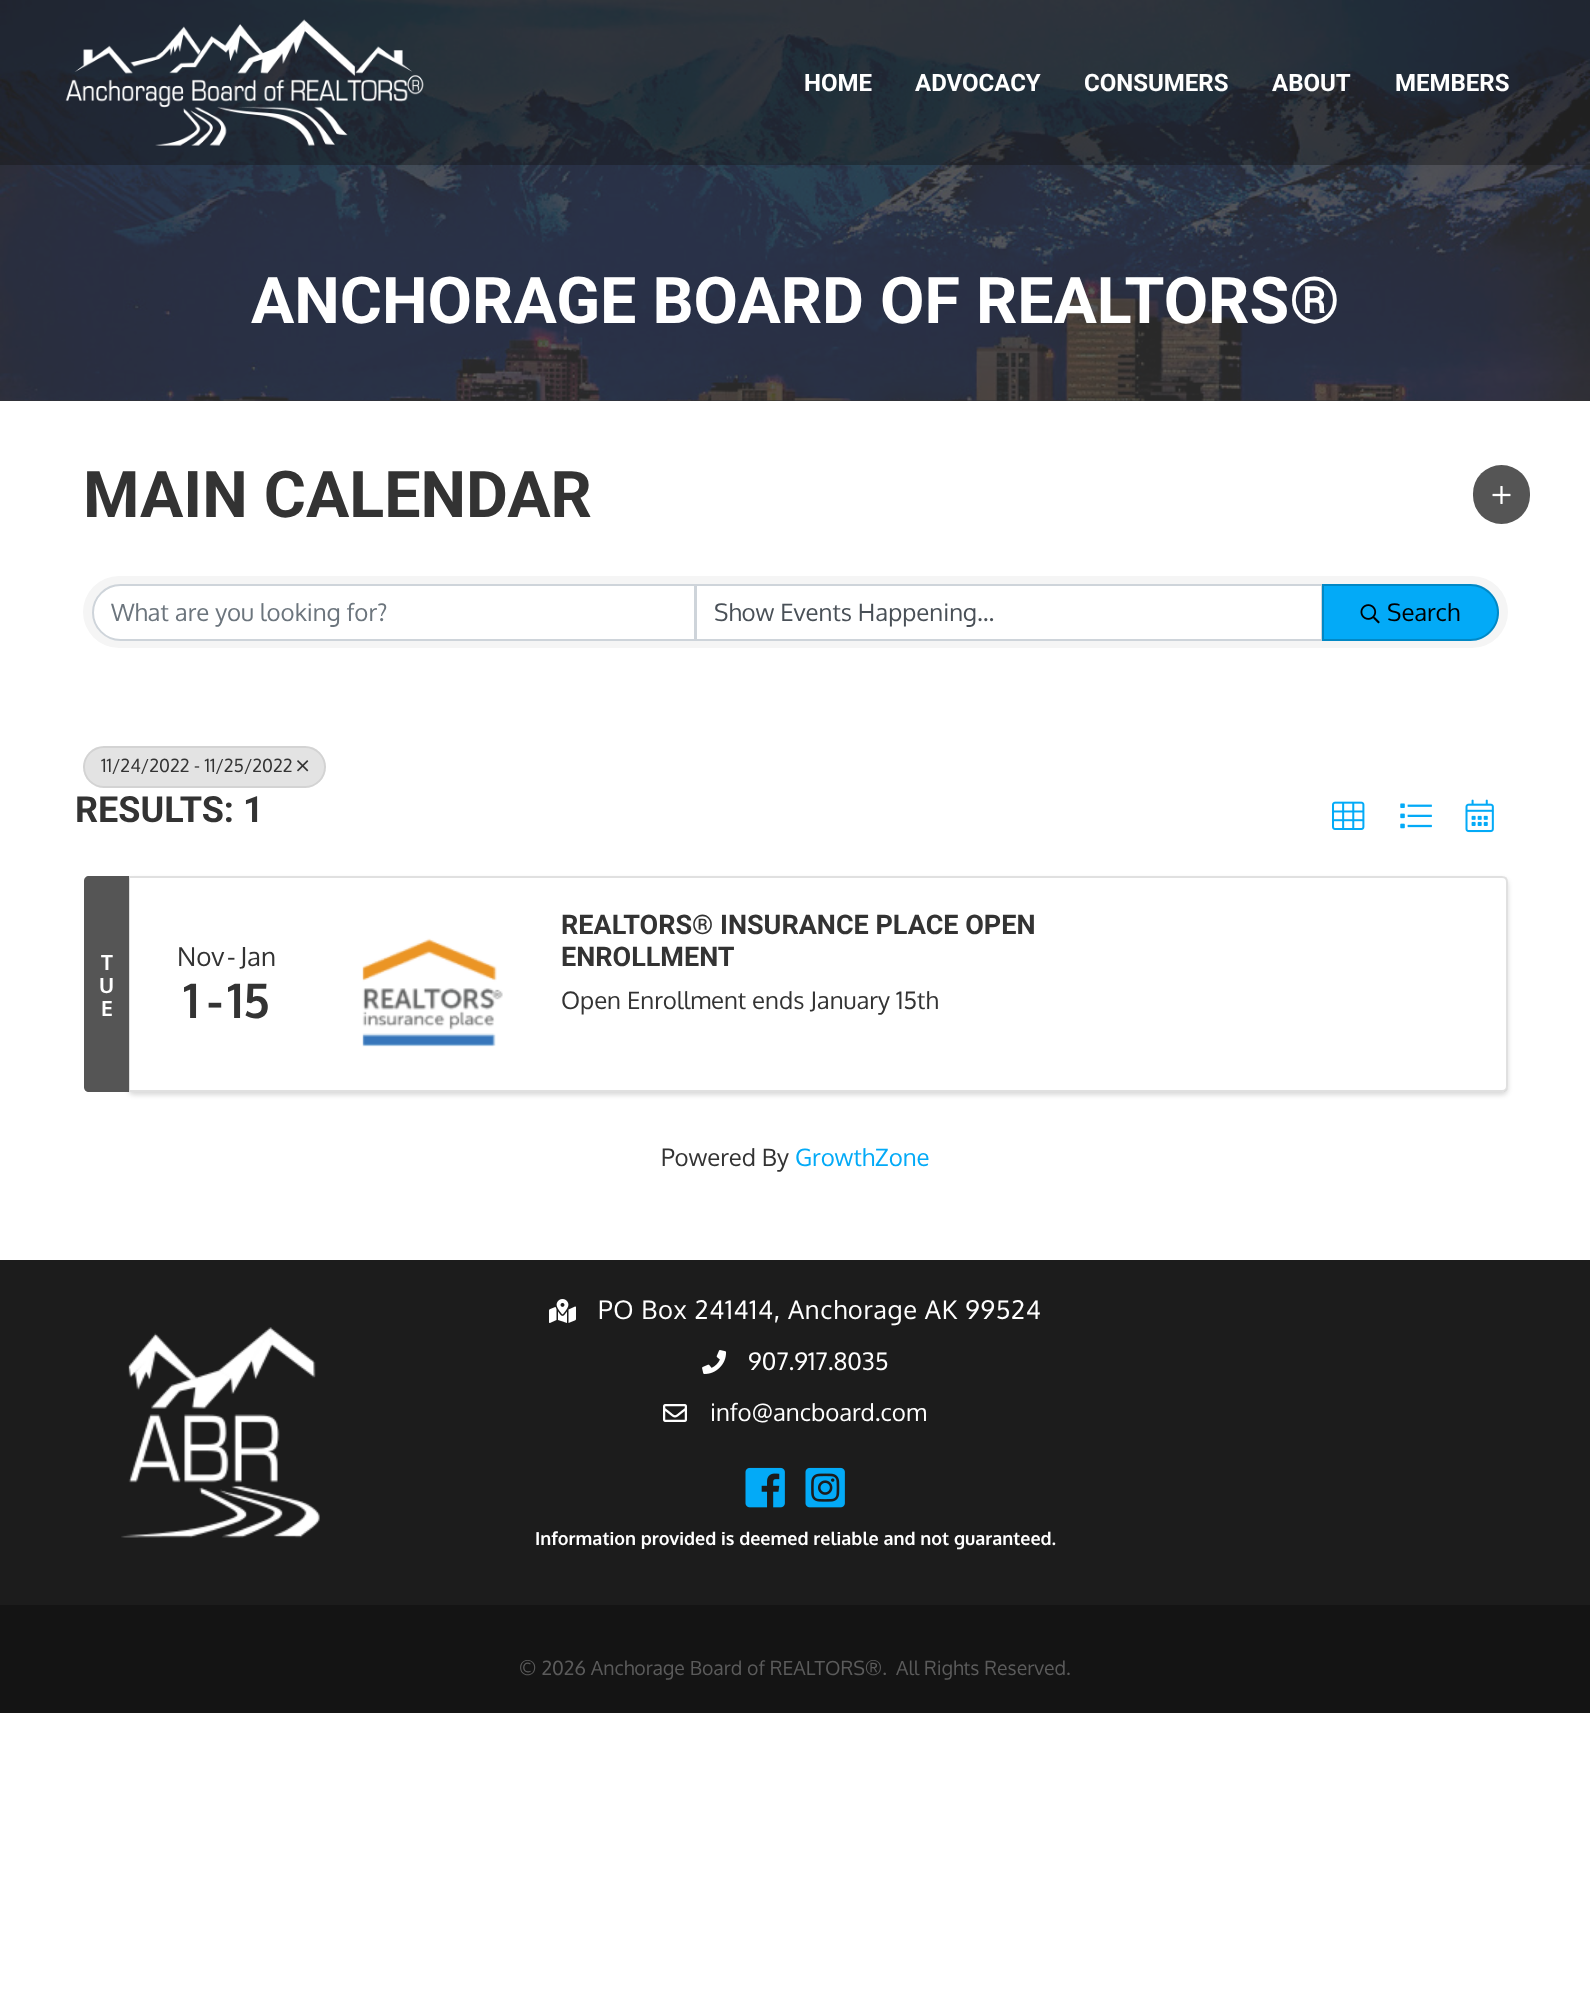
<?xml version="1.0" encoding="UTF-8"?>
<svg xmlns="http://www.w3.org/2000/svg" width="1590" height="2008">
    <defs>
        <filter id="blur1" x="-50%" y="-200%" width="200%" height="500%"><feGaussianBlur stdDeviation="2.5"/></filter>
    </defs>
    <rect width="100%" height="100%" fill="#FFFFFF"/>
    <rect x="0" y="400" width="1590" height="1" fill="#333333"/>
    <image x="0" y="0" width="1590" height="401" href="img_02.png"/>
    <rect x="0" y="0" width="1590" height="165" fill="#141414" fill-opacity="0.4"/>
    <image x="65" y="19" width="359" height="127" href="img_01.png"/>
    <text x="804" y="91" font-family="Roboto" font-size="24" font-weight="700" fill="#FFFFFF">HOME</text>
    <text x="915" y="91" font-family="Roboto" font-size="24" font-weight="700" fill="#FFFFFF">ADVOCACY</text>
    <text x="1084" y="91" font-family="Roboto" font-size="24" font-weight="700" fill="#FFFFFF">CONSUMERS</text>
    <text x="1272" y="91" font-family="Roboto" font-size="24" font-weight="700" fill="#FFFFFF">ABOUT</text>
    <text x="1395" y="91" font-family="Roboto" font-size="24" font-weight="700" fill="#FFFFFF">MEMBERS</text>
    <text x="251" y="323" font-family="Roboto" font-size="64.5" font-weight="700" fill="#FFFFFF">ANCHORAGE BOARD OF REALTORS®</text>
    <text x="83" y="517" font-family="Roboto" font-size="64.5" font-weight="700" fill="#333333">MAIN CALENDAR</text>
    <rect x="1473" y="465" width="57" height="59" rx="28.5" fill="#555555"/>
    <image x="1492" y="486" width="19" height="18" href="img_03.png"/>
    <rect x="83" y="576" width="1425" height="72" rx="36" fill="#F5F5F5"/>
    <rect x="696" y="585" width="626" height="55" fill="#FFFFFF" stroke="#CED4DA" stroke-width="2"/>
    <path d="M 120.5 585 H 695 V 640 H 120.5 C 105.5 640 93 627.5 93 612.5 C 93 597.5 105.5 585 120.5 585 Z" fill="#FFFFFF" stroke="#CED4DA" stroke-width="2"/>
    <text x="111" y="621" font-family="Oxygen" font-size="24" fill="#6C757D">What are you looking for?</text>
    <text x="714" y="621" font-family="Oxygen" font-size="24" fill="#495057">Show Events Happening...</text>
    <path d="M 1322 584 H 1470.5 C 1486 584 1499 597 1499 612.5 C 1499 628 1486 641 1470.5 641 H 1322 Z" fill="#03AAF7"/>
    <path d="M 1323 585 H 1470.5 C 1485.5 585 1498 597.5 1498 612.5 C 1498 627.5 1485.5 640 1470.5 640 H 1323 Z" fill="none" stroke="#000000" stroke-opacity="0.2" stroke-width="2"/>
    <image x="1360" y="604" width="20" height="20" href="img_04.png"/>
    <text x="1387" y="621" font-family="Oxygen" font-size="24" fill="#000000">Search</text>
    <rect x="83" y="746" width="243" height="42" rx="21" fill="#E3E3E3"/>
    <rect x="84" y="747" width="241" height="40" rx="20" fill="none" stroke="#000000" stroke-opacity="0.07" stroke-width="2"/>
    <text x="101" y="772" font-family="Oxygen" font-size="18" fill="#333333">11/24/2022 - 11/25/2022</text>
    <image x="297" y="760" width="12" height="12" href="img_05.png"/>
    <text x="75" y="822" font-family="Roboto" font-size="36" font-weight="700" fill="#333333">RESULTS: 1</text>
    <image x="1332" y="801" width="33" height="29" href="img_06.png"/>
    <image x="1400" y="803" width="32" height="26" href="img_07.png"/>
    <image x="1465" y="799" width="29" height="34" href="img_08.png"/>
    <rect x="128" y="879" width="1380" height="216" rx="6" fill="#000000" fill-opacity="0.15" filter="url(#blur1)"/>
    <path d="M 128 876 H 1502 C 1505.5 876 1508 878.5 1508 882 V 1086 C 1508 1089.5 1505.5 1092 1502 1092 H 128 Z" fill="#FFFFFF"/>
    <path d="M 129 877 H 1502 C 1505 877 1507 879 1507 882 V 1086 C 1507 1089 1505 1091 1502 1091 H 129 Z" fill="none" stroke="#000000" stroke-opacity="0.12" stroke-width="2"/>
    <path d="M 89 876 H 129 V 1092 H 89 C 86 1092 84 1090 84 1087 V 881 C 84 878 86 876 89 876 Z" fill="#555555"/>
    <text x="101" y="970" font-family="Oxygen" font-size="21" font-weight="700" fill="#FFFFFF">T</text>
    <text x="99" y="993" font-family="Oxygen" font-size="21" font-weight="700" fill="#FFFFFF">U</text>
    <text x="101" y="1016" font-family="Oxygen" font-size="21" font-weight="700" fill="#FFFFFF">E</text>
    <text x="177" y="966" font-family="Oxygen" font-size="26" fill="#333333">Nov</text>
    <text x="227" y="966" font-family="Oxygen" font-size="26" fill="#333333">-</text>
    <text x="240" y="966" font-family="Oxygen" font-size="26" fill="#333333">Jan</text>
    <text x="183" y="1018" font-family="Oxygen" font-size="48" font-weight="700" fill="#333333">1</text>
    <text x="207" y="1018" font-family="Oxygen" font-size="48" font-weight="700" fill="#333333">-</text>
    <text x="227" y="1018" font-family="Oxygen" font-size="48" font-weight="700" fill="#333333">15</text>
    <image x="362" y="938" width="141" height="109" href="img_09.png"/>
    <text font-family="Roboto" font-size="27" font-weight="700" fill="#333333">
        <tspan x="561" y="934">REALTORS® INSURANCE PLACE OPEN</tspan>
        <tspan x="561" y="966">ENROLLMENT</tspan>
    </text>
    <text x="561" y="1009" font-family="Oxygen" font-size="24" fill="#333333">Open Enrollment ends January 15th</text>
    <text x="661" y="1166" font-family="Oxygen" font-size="24" fill="#333333">Powered By</text>
    <text x="795" y="1166" font-family="Oxygen" font-size="24" fill="#03AAF7">GrowthZone</text>
    <rect x="0" y="1260" width="1590" height="345" fill="#1C1C1C"/>
    <image x="121" y="1327" width="199" height="211" href="img_10.png"/>
    <image x="549" y="1299" width="27" height="24" href="img_11.png"/>
    <text x="598" y="1319" font-family="Oxygen" font-size="25.5" letter-spacing="0.75" fill="#FFFFFF">PO Box 241414, Anchorage AK 99524</text>
    <image x="702" y="1350" width="25" height="24" href="img_12.png"/>
    <text x="748" y="1370" font-family="Oxygen" font-size="24" fill="#FFFFFF">907.917.8035</text>
    <image x="663" y="1404" width="24" height="18" href="img_13.png"/>
    <text x="710" y="1421" font-family="Oxygen" font-size="24" fill="#FFFFFF">info@ancboard.com</text>
    <image x="745" y="1467" width="40" height="41" href="img_14.png"/>
    <image x="805" y="1467" width="40" height="41" href="img_15.png"/>
    <text x="535" y="1545" font-family="Oxygen" font-size="18" font-weight="700" fill="#FFFFFF">Information provided is deemed reliable and not guaranteed.</text>
    <rect x="0" y="1605" width="1590" height="108" fill="#141414"/>
    <text x="519" y="1675" font-family="Oxygen" font-size="19.5" fill="#5B5B5B">© 2026 Anchorage Board of REALTORS®.</text>
    <text x="896" y="1675" font-family="Oxygen" font-size="19.5" fill="#5B5B5B">All Rights Reserved.</text>
</svg>
